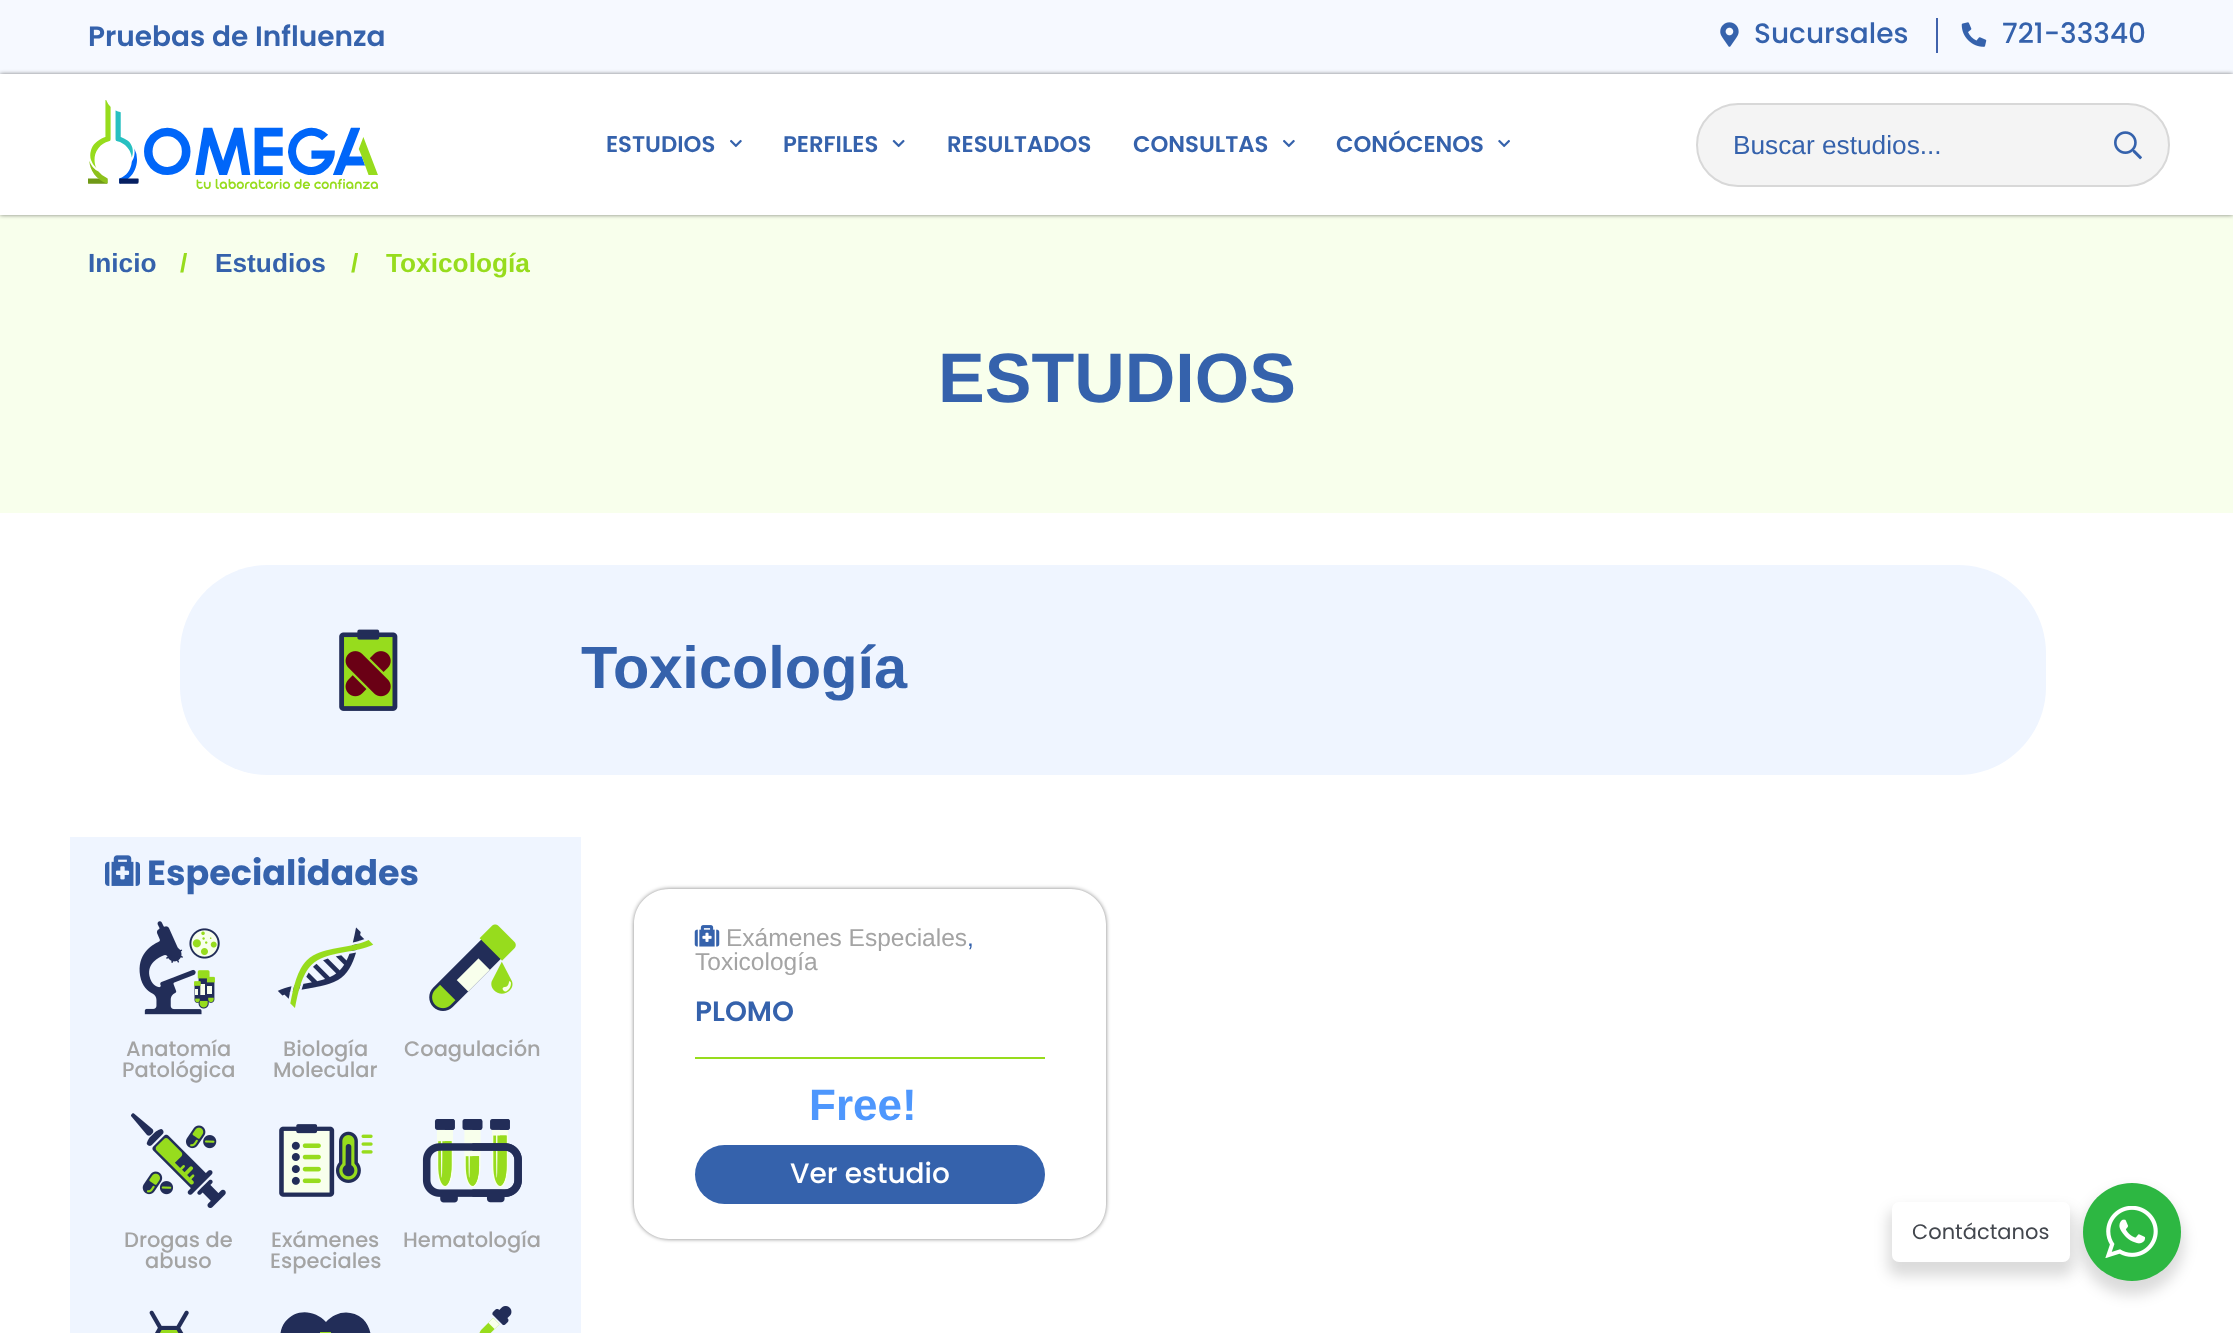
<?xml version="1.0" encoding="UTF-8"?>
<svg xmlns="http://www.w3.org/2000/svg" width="2233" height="1333">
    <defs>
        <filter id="blur1" x="-50%" y="-200%" width="200%" height="500%"><feGaussianBlur stdDeviation="2"/></filter>
        <clipPath id="clip1"><path d="M 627 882 H 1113 V 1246 H 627 Z M 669 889 H 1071 C 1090.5 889 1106 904.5 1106 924 V 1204 C 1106 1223.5 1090.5 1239 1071 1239 H 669 C 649.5 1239 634 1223.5 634 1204 V 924 C 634 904.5 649.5 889 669 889 Z" clip-rule="evenodd"/></clipPath>
        <filter id="blur2" x="-50%" y="-200%" width="200%" height="500%"><feGaussianBlur stdDeviation="7"/></filter>
    </defs>
    <rect width="100%" height="100%" fill="#FFFFFF"/>
    <rect x="0" y="0" width="2233" height="74" fill="#F6F9FF"/>
    <text x="88" y="46" font-family="Poppins" font-size="28" font-weight="600" fill="#3562AC">Pruebas de Influenza</text>
    <image x="1720" y="22" width="19" height="25" href="img_01.png"/>
    <text x="1754" y="43" font-family="Poppins" font-size="28" font-weight="500" fill="#3562AC">Sucursales</text>
    <rect x="1936" y="18" width="2" height="35" fill="#4062AC"/>
    <image x="1961" y="22" width="26" height="25" href="img_02.png"/>
    <text x="2002" y="43" font-family="Poppins" font-size="28" font-weight="500" fill="#3562AC">721-33340</text>
    <rect x="0" y="215" width="2233" height="298" fill="#F8FFEC"/>
    <rect x="0" y="74" width="2233" height="141" fill="#000000" fill-opacity="0.5" filter="url(#blur1)"/>
    <rect x="0" y="74" width="2233" height="141" fill="#FFFFFF"/>
    <image x="88" y="100" width="290" height="89" href="img_03.png"/>
    <text x="606" y="152" font-family="Poppins" font-size="22.75" font-weight="600" fill="#3562AC">ESTUDIOS</text>
    <image x="730" y="139" width="12" height="9" href="img_04.png"/>
    <text x="783" y="152" font-family="Poppins" font-size="22.75" font-weight="600" fill="#3562AC">PERFILES</text>
    <image x="892" y="139" width="13" height="9" href="img_05.png"/>
    <text x="947" y="152" font-family="Poppins" font-size="22.75" font-weight="600" fill="#3562AC">RESULTADOS</text>
    <text x="1133" y="152" font-family="Poppins" font-size="22.75" font-weight="600" fill="#3562AC">CONSULTAS</text>
    <image x="1283" y="139" width="12" height="9" href="img_04.png"/>
    <text x="1336" y="152" font-family="Poppins" font-size="22.75" font-weight="600" fill="#3562AC">CONÓCENOS</text>
    <image x="1498" y="139" width="12" height="9" href="img_06.png"/>
    <rect x="1697" y="104" width="472" height="82" rx="41" fill="#F4F4F4" stroke="#D8D8D8" stroke-width="2"/>
    <text x="1733" y="154" font-family="Liberation Sans" font-size="26.25" fill="#3562AC">Buscar estudios...</text>
    <image x="2114" y="131" width="28" height="29" href="img_07.png"/>
    <text x="88" y="272" font-family="Liberation Sans" font-size="26.25" font-weight="700" fill="#3562AC">Inicio</text>
    <text x="180" y="272" font-family="Liberation Sans" font-size="26.25" font-weight="700" fill="#97DC1D">/</text>
    <text x="215" y="272" font-family="Liberation Sans" font-size="26.25" font-weight="700" fill="#3562AC">Estudios</text>
    <text x="351" y="272" font-family="Liberation Sans" font-size="26.25" font-weight="700" fill="#97DC1D">/</text>
    <text x="386" y="272" font-family="Liberation Sans" font-size="26.25" font-weight="700" fill="#97DC1D">Toxicología</text>
    <text x="938" y="402" font-family="Liberation Sans" font-size="70" font-weight="700" fill="#3562AC">ESTUDIOS</text>
    <path d="M 268 565 H 555 V 775 H 268 C 219.5 775 180 735.5 180 687 V 653 C 180 604.5 219.5 565 268 565 Z" fill="#EFF5FF"/>
    <image x="339" y="629" width="59" height="82" href="img_08.png"/>
    <path d="M 555 565 H 1958 C 2006.5 565 2046 604.5 2046 653 V 687 C 2046 735.5 2006.5 775 1958 775 H 555 Z" fill="#EFF5FF"/>
    <text x="581" y="688" font-family="Liberation Sans" font-size="59.5" font-weight="700" fill="#3562AC">Toxicología</text>
    <rect x="70" y="837" width="511" height="496" fill="#EFF5FF"/>
    <image x="105" y="855" width="35" height="31" href="img_09.png"/>
    <text x="147" y="885" font-family="Poppins" font-size="35" font-weight="700" fill="#3562AC">Especialidades</text>
    <image x="139" y="921" width="81" height="94" href="img_10.png"/>
    <text x="126" y="1056" font-family="Poppins" font-size="21" font-weight="500" fill="#A4A4A4">Anatomía</text>
    <text x="122" y="1077" font-family="Poppins" font-size="21" font-weight="500" fill="#A4A4A4">Patológica</text>
    <image x="277" y="927" width="97" height="81" href="img_11.png"/>
    <text x="283" y="1056" font-family="Poppins" font-size="21" font-weight="500" fill="#A4A4A4">Biología</text>
    <text x="273" y="1077" font-family="Poppins" font-size="21" font-weight="500" fill="#A4A4A4">Molecular</text>
    <image x="429" y="924" width="87" height="87" href="img_12.png"/>
    <text x="404" y="1056" font-family="Poppins" font-size="21" font-weight="500" fill="#A4A4A4">Coagulación</text>
    <image x="131" y="1113" width="95" height="95" href="img_13.png"/>
    <text x="124" y="1247" font-family="Poppins" font-size="21" font-weight="500" fill="#A4A4A4">Drogas de</text>
    <text x="145" y="1268" font-family="Poppins" font-size="21" font-weight="500" fill="#A4A4A4">abuso</text>
    <image x="279" y="1124" width="94" height="73" href="img_14.png"/>
    <text x="271" y="1247" font-family="Poppins" font-size="21" font-weight="500" fill="#A4A4A4">Exámenes</text>
    <text x="270" y="1268" font-family="Poppins" font-size="21" font-weight="500" fill="#A4A4A4">Especiales</text>
    <image x="422" y="1119" width="100" height="84" href="img_15.png"/>
    <text x="403" y="1247" font-family="Poppins" font-size="21" font-weight="500" fill="#A4A4A4">Hematología</text>
    <image x="149" y="1310" width="40" height="23" href="img_16.png"/>
    <path d="M 371 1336 C 370 1330 368 1324 363 1319 C 351 1309 336 1311 326 1322 C 315 1310 296 1308 285 1322 C 281 1327 280 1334 280 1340 C 283 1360 309 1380 325 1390 C 342 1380 372 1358 371 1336 Z" fill="#222D58"/>
    <path d="M 331 1332 H 320 V 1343 H 309 V 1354 H 320 V 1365 H 331 V 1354 H 342 V 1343 H 331 Z" fill="#97DC1D"/>
    <image x="479" y="1306" width="33" height="27" href="img_17.png"/>
    <g clip-path="url(#clip1)">
        <rect x="634" y="889" width="472" height="350" rx="35" fill="#000000" fill-opacity="0.5" filter="url(#blur1)"/>
    </g>
    <image x="694" y="925" width="26" height="22" href="img_18.png"/>
    <text x="726" y="946" font-family="Liberation Sans" font-size="24.5" fill="#A4A4A4">Exámenes Especiales</text>
    <text x="967" y="946" font-family="Liberation Sans" font-size="24.5" fill="#3562AC">,</text>
    <text x="695" y="970" font-family="Liberation Sans" font-size="24.5" fill="#A4A4A4">Toxicología</text>
    <rect x="695" y="1057" width="350" height="2" fill="#97DC1D"/>
    <text x="695" y="1021" font-family="Poppins" font-size="28" font-weight="600" fill="#3562AC">PLOMO</text>
    <text x="809" y="1120" font-family="Liberation Sans" font-size="44" font-weight="700" fill="#4E97FD">Free!</text>
    <rect x="695" y="1145" width="350" height="59" rx="29.5" fill="#3562AC"/>
    <text x="790" y="1183" font-family="Poppins" font-size="28" font-weight="500" fill="#FFFFFF">Ver estudio</text>
    <rect x="2079" y="1190" width="105" height="105" rx="52.5" fill="#000000" fill-opacity="0.14" filter="url(#blur2)"/>
    <circle cx="2132" cy="1232" r="49" fill="#2DB742"/>
    <rect x="1888" y="1209" width="186" height="67" rx="11" fill="#000000" fill-opacity="0.14" filter="url(#blur2)"/>
    <rect x="1892" y="1202" width="178" height="60" rx="7" fill="#FFFFFF"/>
    <text x="1912" y="1239" font-family="Poppins" font-size="21" fill="#43474E">Contáctanos</text>
    <image x="2105" y="1206" width="53" height="52" href="img_19.png"/>
</svg>
